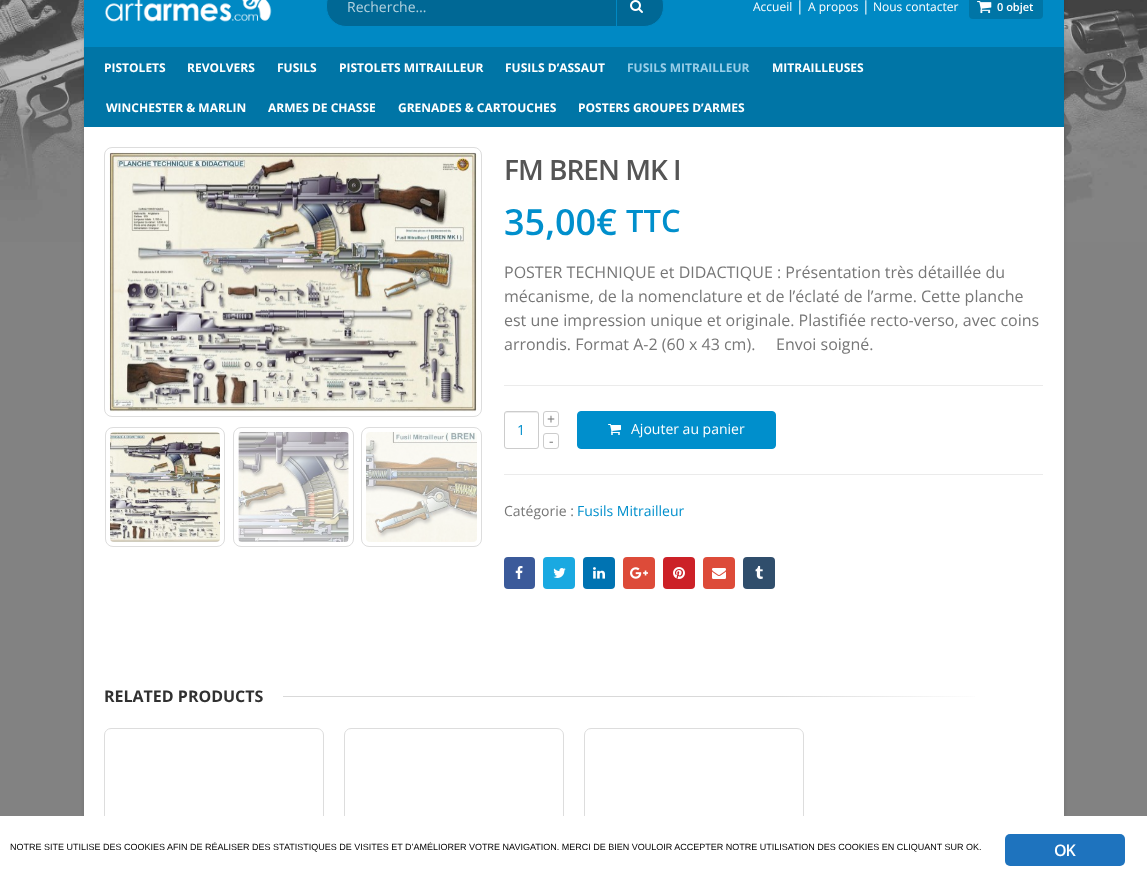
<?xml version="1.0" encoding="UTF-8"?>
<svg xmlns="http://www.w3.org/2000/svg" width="1147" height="882">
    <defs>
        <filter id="blur1" x="-50%" y="-200%" width="200%" height="500%"><feGaussianBlur stdDeviation="2"/></filter>
        <linearGradient id="g1" gradientUnits="userSpaceOnUse" x1="283" y1="697" x2="989" y2="697"><stop offset="0" stop-color="#D9D9D9"/><stop offset="0.7" stop-color="#D9D9D9"/><stop offset="1" stop-color="#FFFFFF"/></linearGradient>
    </defs>
    <rect width="100%" height="100%" fill="#828282"/>
    <image x="0" y="0" width="1147" height="242" href="img_01.png"/>
    <rect x="84" y="-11" width="980" height="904" rx="5" fill="#000000" fill-opacity="0.15" filter="url(#blur1)"/>
    <rect x="84" y="127" width="980" height="689" fill="#FFFFFF"/>
    <rect x="84" y="0" width="980" height="47" fill="#0089C4"/>
    <image x="105" y="0" width="167" height="22" href="img_02.png"/>
    <rect x="326.5" y="-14.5" width="337" height="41" rx="19.5" fill="#006895" stroke="#0089C4"/>
    <rect x="616" y="0" width="1" height="26" fill="#0089C4"/>
    <text x="347" y="12" font-family="Open Sans" font-size="14" fill="#B3D2DF">Recherche…</text>
    <image x="630" y="0" width="13" height="13" href="img_03.png"/>
    <text x="753" y="11" font-family="Open Sans" font-size="12" fill="#FFFFFF">Accueil</text>
    <text x="796" y="11" font-family="Open Sans" font-size="14" fill="#FFFFFF">|</text>
    <text x="808" y="11" font-family="Open Sans" font-size="12" fill="#FFFFFF">A propos</text>
    <text x="862" y="11" font-family="Open Sans" font-size="14" fill="#FFFFFF">|</text>
    <text x="873" y="11" font-family="Open Sans" font-size="12" fill="#FFFFFF">Nous contacter</text>
    <rect x="969" y="-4" width="74" height="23" rx="4" fill="#0075A6"/>
    <image x="977" y="1" width="15" height="13" href="img_04.png"/>
    <text x="997" y="11" font-family="Open Sans" font-size="11" font-weight="600" fill="#FFFFFF">0 objet</text>
    <rect x="84" y="47" width="980" height="80" fill="#0075A6"/>
    <text x="104" y="72" font-family="Open Sans" font-size="12" font-weight="700" fill="#FFFFFF">PISTOLETS</text>
    <text x="187" y="72" font-family="Open Sans" font-size="12" font-weight="700" fill="#FFFFFF">REVOLVERS</text>
    <text x="277" y="72" font-family="Open Sans" font-size="12" font-weight="700" fill="#FFFFFF">FUSILS</text>
    <text x="339" y="72" font-family="Open Sans" font-size="12" font-weight="700" fill="#FFFFFF">PISTOLETS MITRAILLEUR</text>
    <text x="505" y="72" font-family="Open Sans" font-size="12" font-weight="700" fill="#FFFFFF">FUSILS D’ASSAUT</text>
    <text x="627" y="72" font-family="Open Sans" font-size="12" font-weight="700" fill="#99CEE8">FUSILS MITRAILLEUR</text>
    <text x="772" y="72" font-family="Open Sans" font-size="12" font-weight="700" fill="#FFFFFF">MITRAILLEUSES</text>
    <text x="106" y="112" font-family="Open Sans" font-size="12" font-weight="700" fill="#FFFFFF">WINCHESTER &amp; MARLIN</text>
    <text x="268" y="112" font-family="Open Sans" font-size="12" font-weight="700" fill="#FFFFFF">ARMES DE CHASSE</text>
    <text x="398" y="112" font-family="Open Sans" font-size="12" font-weight="700" fill="#FFFFFF">GRENADES &amp; CARTOUCHES</text>
    <text x="578" y="112" font-family="Open Sans" font-size="12" font-weight="700" fill="#FFFFFF">POSTERS GROUPES D’ARMES</text>
    <rect x="104.5" y="147.5" width="377" height="269" rx="7.5" fill="none" stroke="#DDDDDD"/>
    <image x="109" y="152" width="368" height="260" href="img_05.png"/>
    <rect x="105.5" y="427.5" width="119" height="119" rx="7.5" fill="none" stroke="#DDDDDD"/>
    <image x="110" y="432" width="110" height="110" href="img_06.png"/>
    <rect x="233.5" y="427.5" width="120" height="119" rx="7.5" fill="none" stroke="#DDDDDD"/>
    <image x="238" y="432" width="111" height="110" href="img_07.png"/>
    <rect x="361.5" y="427.5" width="120" height="119" rx="7.5" fill="none" stroke="#DDDDDD"/>
    <image x="366" y="432" width="111" height="110" href="img_08.png"/>
    <text x="504" y="180" font-family="Open Sans" font-size="28" font-weight="600" letter-spacing="-1" fill="#555555">FM BREN MK I</text>
    <text x="504" y="235" font-family="Open Sans" font-size="36" font-weight="600" fill="#008FCC">35,00€</text>
    <text x="626" y="232" font-family="Open Sans" font-size="31" font-weight="600" fill="#008FCC">TTC</text>
    <text font-family="Open Sans" font-size="16" fill="#777777">
        <tspan x="504" y="278">POSTER TECHNIQUE et DIDACTIQUE : Présentation très détaillée du</tspan>
        <tspan x="504" y="302">mécanisme, de la nomenclature et de l’éclaté de l’arme. Cette planche</tspan>
        <tspan x="504" y="326">est une impression unique et originale. Plastifiée recto-verso, avec coins</tspan>
        <tspan x="504" y="350">arrondis. Format A-2 (60 x 43 cm).</tspan>
    </text>
    <text x="776" y="350" font-family="Open Sans" font-size="16" fill="#777777">Envoi soigné.</text>
    <rect x="504" y="385" width="539" height="1" fill="#EBEBEB"/>
    <rect x="504" y="474" width="539" height="1" fill="#EBEBEB"/>
    <rect x="543.5" y="411.5" width="15" height="15" rx="2.5" fill="none" stroke="#CCCCCC"/>
    <text x="547" y="424" font-family="Open Sans" font-size="14" fill="#777777">+</text>
    <path d="M 507 413 H 536 C 537 413 538 414 538 415 C 538 411 535 412 531 412 H 512 C 508 412 505 411 505 415 C 505 414 506 413 507 413 Z" fill="#ECECEC"/>
    <rect x="504.5" y="411.5" width="34" height="37" rx="2.5" fill="none" stroke="#CCCCCC"/>
    <text x="517" y="435" font-family="Open Sans" font-size="14" fill="#008FCC">1</text>
    <rect x="543.5" y="433.5" width="15" height="15" rx="2.5" fill="none" stroke="#CCCCCC"/>
    <text x="549" y="446" font-family="Open Sans" font-size="14" fill="#777777">-</text>
    <rect x="577.5" y="411.5" width="198" height="37" rx="3.5" fill="#008FCC" stroke="#008FCC"/>
    <image x="608" y="424" width="13" height="11" href="img_09.png"/>
    <text x="631" y="434" font-family="Open Sans" font-size="14" fill="#FFFFFF">Ajouter au panier</text>
    <text x="504" y="516" font-family="Open Sans" font-size="14" fill="#777777">Catégorie :</text>
    <text x="577" y="516" font-family="Open Sans" font-size="14" fill="#008FCC">Fusils Mitrailleur</text>
    <rect x="504" y="557" width="31" height="32" rx="4" fill="#3B5A9A"/>
    <image x="515" y="566" width="8" height="13" href="img_10.png"/>
    <rect x="543" y="557" width="32" height="32" rx="4" fill="#1AA9E1"/>
    <image x="553" y="568" width="13" height="10" href="img_11.png"/>
    <rect x="583" y="557" width="32" height="32" rx="4" fill="#0073B2"/>
    <image x="593" y="567" width="12" height="12" href="img_12.png"/>
    <rect x="623" y="557" width="32" height="32" rx="4" fill="#DD4B39"/>
    <image x="630" y="567" width="18" height="12" href="img_13.png"/>
    <rect x="663" y="557" width="32" height="32" rx="4" fill="#CC2127"/>
    <image x="673" y="567" width="12" height="12" href="img_14.png"/>
    <rect x="703" y="557" width="32" height="32" rx="4" fill="#DD4B39"/>
    <image x="712" y="568" width="14" height="11" href="img_15.png"/>
    <rect x="743" y="557" width="32" height="32" rx="4" fill="#304E6C"/>
    <image x="755" y="566" width="8" height="13" href="img_16.png"/>
    <text x="104" y="702" font-family="Open Sans" font-size="16" font-weight="700" fill="#313131">RELATED PRODUCTS</text>
    <rect x="283" y="696" width="692" height="1" fill="url(#g1)"/>
    <rect x="104.5" y="728.5" width="219" height="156" rx="6.5" fill="none" stroke="#DDDDDD"/>
    <rect x="344.5" y="728.5" width="219" height="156" rx="6.5" fill="none" stroke="#DDDDDD"/>
    <rect x="584.5" y="728.5" width="219" height="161" rx="6.5" fill="none" stroke="#DDDDDD"/>
    <rect x="0" y="816" width="1147" height="66" fill="#FFFFFF"/>
    <text x="10" y="850" font-family="Liberation Sans" font-size="9" fill="#000000">NOTRE SITE UTILISE DES COOKIES AFIN DE RÉALISER DES STATISTIQUES DE VISITES ET D’AMÉLIORER VOTRE NAVIGATION. MERCI DE BIEN VOULOIR ACCEPTER NOTRE UTILISATION DES COOKIES EN CLIQUANT SUR OK.</text>
    <rect x="1005" y="834" width="120" height="32" rx="5" fill="#1E73BE"/>
    <text x="1054" y="856" font-family="Open Sans" font-size="16" font-weight="600" letter-spacing="-1" fill="#FFFFFF">OK</text>
</svg>
